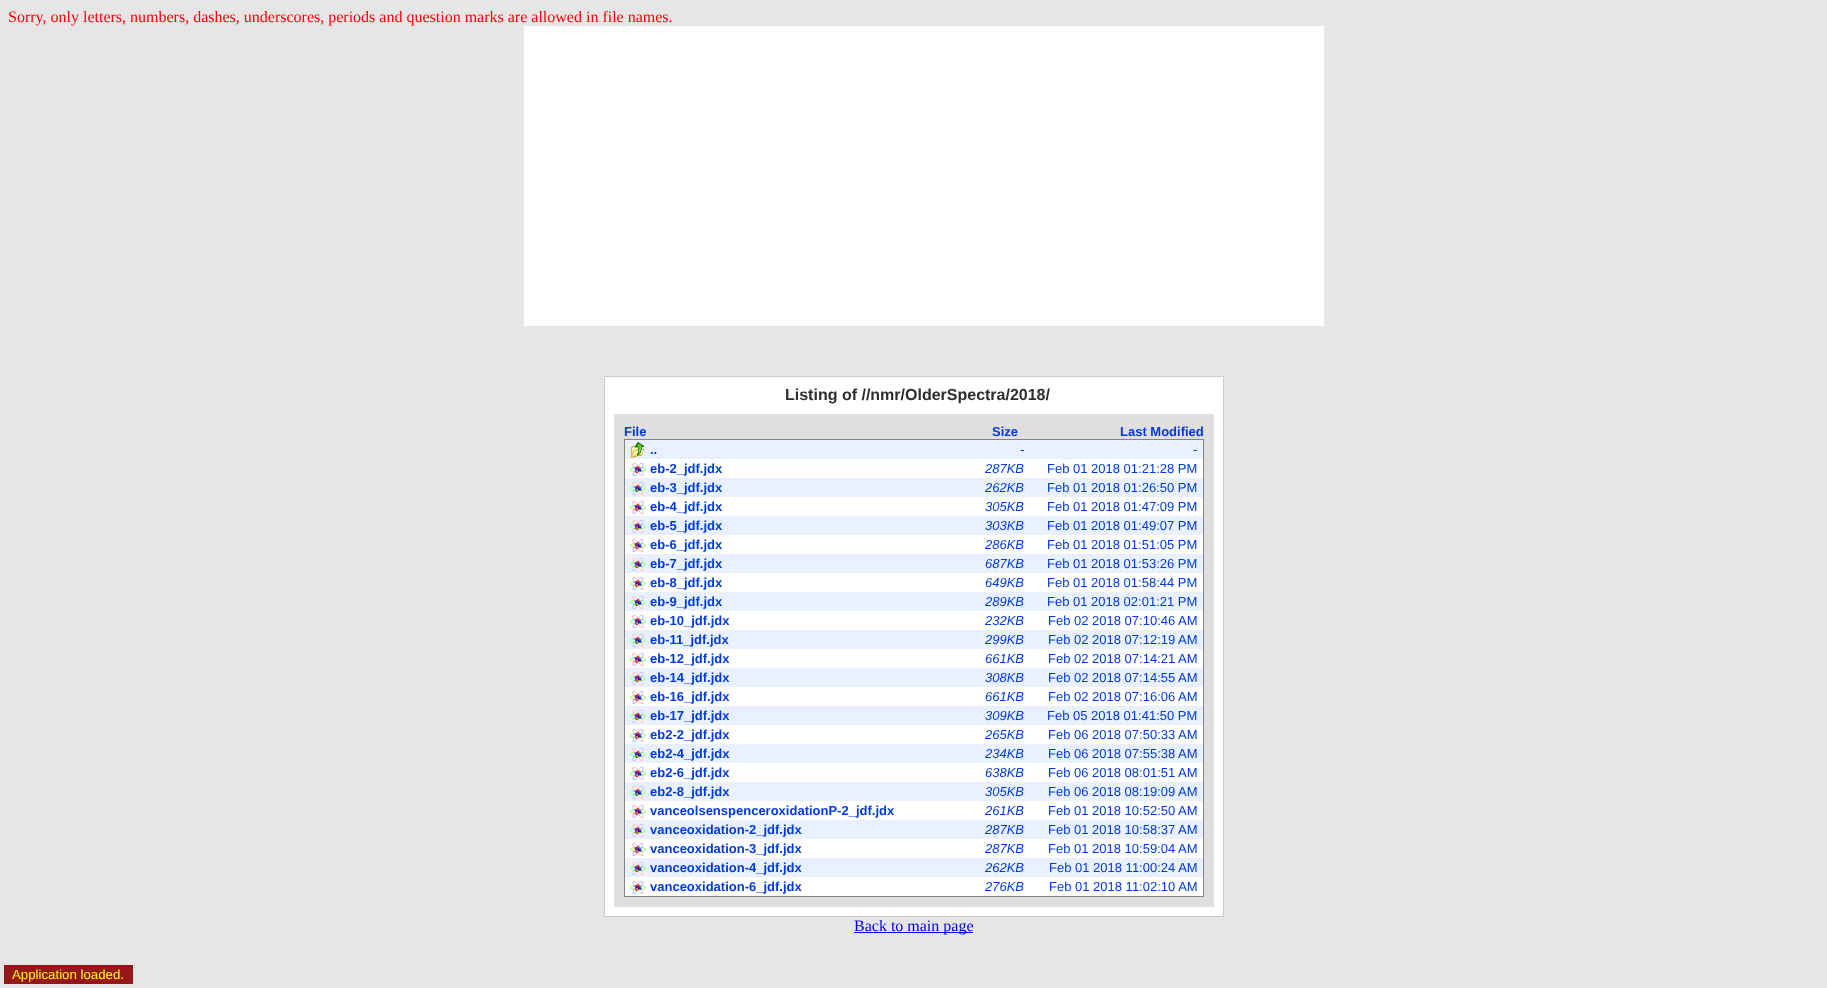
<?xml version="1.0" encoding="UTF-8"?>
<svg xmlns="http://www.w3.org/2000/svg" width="1827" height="988">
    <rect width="100%" height="100%" fill="#E6E6E6"/>
    <text x="8" y="22" font-family="Liberation Serif" font-size="16" fill="#FF0000">Sorry, only letters, numbers, dashes, underscores, periods and question marks are allowed in file names.</text>
    <rect x="524" y="26" width="800" height="300" fill="#FFFFFF"/>
    <rect x="604.5" y="376.5" width="619" height="540" fill="#FFFFFF" stroke="#CCCCCC"/>
    <text x="785" y="400" font-family="Liberation Sans" font-size="16" font-weight="700" fill="#2E2E2E">Listing of //nmr/OlderSpectra/2018/</text>
    <rect x="614" y="414" width="600" height="493" fill="#E0DEDE"/>
    <text x="624" y="436" font-family="Liberation Sans" font-size="13" font-weight="700" fill="#013ADF">File</text>
    <text x="992" y="436" font-family="Liberation Sans" font-size="13" font-weight="700" fill="#013ADF">Size</text>
    <text x="1120" y="436" font-family="Liberation Sans" font-size="13" font-weight="700" fill="#013ADF">Last Modified</text>
    <rect x="624.5" y="439.5" width="579" height="457" fill="none" stroke="#848484"/>
    <rect x="625" y="440" width="578" height="19" fill="#E9F0FF"/>
    <image x="631" y="442" width="13" height="16" href="img_01.png"/>
    <text x="1020" y="454" font-family="Liberation Sans" font-size="13" font-style="italic" fill="#013ADF">-</text>
    <text x="1193" y="454" font-family="Liberation Sans" font-size="13" fill="#013ADF">-</text>
    <text x="650" y="454" font-family="Liberation Sans" font-size="13" font-weight="700" fill="#013ADF">..</text>
    <rect x="625" y="459" width="578" height="19" fill="#FFFFFF"/>
    <image x="630" y="463" width="16" height="13" href="img_02.png"/>
    <text x="650" y="473" font-family="Liberation Sans" font-size="13" font-weight="700" fill="#013ADF">eb-2_jdf.jdx</text>
    <text x="985" y="473" font-family="Liberation Sans" font-size="13" font-style="italic" fill="#013ADF">287KB</text>
    <text x="1047" y="473" font-family="Liberation Sans" font-size="13" fill="#013ADF">Feb 01 2018 01:21:28 PM</text>
    <rect x="625" y="478" width="578" height="19" fill="#E9F0FF"/>
    <image x="630" y="482" width="16" height="13" href="img_03.png"/>
    <text x="650" y="492" font-family="Liberation Sans" font-size="13" font-weight="700" fill="#013ADF">eb-3_jdf.jdx</text>
    <text x="985" y="492" font-family="Liberation Sans" font-size="13" font-style="italic" fill="#013ADF">262KB</text>
    <text x="1047" y="492" font-family="Liberation Sans" font-size="13" fill="#013ADF">Feb 01 2018 01:26:50 PM</text>
    <rect x="625" y="497" width="578" height="19" fill="#FFFFFF"/>
    <image x="630" y="501" width="16" height="13" href="img_02.png"/>
    <text x="650" y="511" font-family="Liberation Sans" font-size="13" font-weight="700" fill="#013ADF">eb-4_jdf.jdx</text>
    <text x="985" y="511" font-family="Liberation Sans" font-size="13" font-style="italic" fill="#013ADF">305KB</text>
    <text x="1047" y="511" font-family="Liberation Sans" font-size="13" fill="#013ADF">Feb 01 2018 01:47:09 PM</text>
    <rect x="625" y="516" width="578" height="19" fill="#E9F0FF"/>
    <image x="630" y="520" width="16" height="13" href="img_03.png"/>
    <text x="650" y="530" font-family="Liberation Sans" font-size="13" font-weight="700" fill="#013ADF">eb-5_jdf.jdx</text>
    <text x="985" y="530" font-family="Liberation Sans" font-size="13" font-style="italic" fill="#013ADF">303KB</text>
    <text x="1047" y="530" font-family="Liberation Sans" font-size="13" fill="#013ADF">Feb 01 2018 01:49:07 PM</text>
    <rect x="625" y="535" width="578" height="19" fill="#FFFFFF"/>
    <image x="630" y="539" width="16" height="13" href="img_02.png"/>
    <text x="650" y="549" font-family="Liberation Sans" font-size="13" font-weight="700" fill="#013ADF">eb-6_jdf.jdx</text>
    <text x="985" y="549" font-family="Liberation Sans" font-size="13" font-style="italic" fill="#013ADF">286KB</text>
    <text x="1047" y="549" font-family="Liberation Sans" font-size="13" fill="#013ADF">Feb 01 2018 01:51:05 PM</text>
    <rect x="625" y="554" width="578" height="19" fill="#E9F0FF"/>
    <image x="630" y="558" width="16" height="13" href="img_03.png"/>
    <text x="650" y="568" font-family="Liberation Sans" font-size="13" font-weight="700" fill="#013ADF">eb-7_jdf.jdx</text>
    <text x="985" y="568" font-family="Liberation Sans" font-size="13" font-style="italic" fill="#013ADF">687KB</text>
    <text x="1047" y="568" font-family="Liberation Sans" font-size="13" fill="#013ADF">Feb 01 2018 01:53:26 PM</text>
    <rect x="625" y="573" width="578" height="19" fill="#FFFFFF"/>
    <image x="630" y="577" width="16" height="13" href="img_02.png"/>
    <text x="650" y="587" font-family="Liberation Sans" font-size="13" font-weight="700" fill="#013ADF">eb-8_jdf.jdx</text>
    <text x="985" y="587" font-family="Liberation Sans" font-size="13" font-style="italic" fill="#013ADF">649KB</text>
    <text x="1047" y="587" font-family="Liberation Sans" font-size="13" fill="#013ADF">Feb 01 2018 01:58:44 PM</text>
    <rect x="625" y="592" width="578" height="19" fill="#E9F0FF"/>
    <image x="630" y="596" width="16" height="13" href="img_03.png"/>
    <text x="650" y="606" font-family="Liberation Sans" font-size="13" font-weight="700" fill="#013ADF">eb-9_jdf.jdx</text>
    <text x="985" y="606" font-family="Liberation Sans" font-size="13" font-style="italic" fill="#013ADF">289KB</text>
    <text x="1047" y="606" font-family="Liberation Sans" font-size="13" fill="#013ADF">Feb 01 2018 02:01:21 PM</text>
    <rect x="625" y="611" width="578" height="19" fill="#FFFFFF"/>
    <image x="630" y="615" width="16" height="13" href="img_02.png"/>
    <text x="650" y="625" font-family="Liberation Sans" font-size="13" font-weight="700" fill="#013ADF">eb-10_jdf.jdx</text>
    <text x="985" y="625" font-family="Liberation Sans" font-size="13" font-style="italic" fill="#013ADF">232KB</text>
    <text x="1048" y="625" font-family="Liberation Sans" font-size="13" fill="#013ADF">Feb 02 2018 07:10:46 AM</text>
    <rect x="625" y="630" width="578" height="19" fill="#E9F0FF"/>
    <image x="630" y="634" width="16" height="13" href="img_03.png"/>
    <text x="650" y="644" font-family="Liberation Sans" font-size="13" font-weight="700" fill="#013ADF">eb-11_jdf.jdx</text>
    <text x="985" y="644" font-family="Liberation Sans" font-size="13" font-style="italic" fill="#013ADF">299KB</text>
    <text x="1048" y="644" font-family="Liberation Sans" font-size="13" fill="#013ADF">Feb 02 2018 07:12:19 AM</text>
    <rect x="625" y="649" width="578" height="19" fill="#FFFFFF"/>
    <image x="630" y="653" width="16" height="13" href="img_02.png"/>
    <text x="650" y="663" font-family="Liberation Sans" font-size="13" font-weight="700" fill="#013ADF">eb-12_jdf.jdx</text>
    <text x="985" y="663" font-family="Liberation Sans" font-size="13" font-style="italic" fill="#013ADF">661KB</text>
    <text x="1048" y="663" font-family="Liberation Sans" font-size="13" fill="#013ADF">Feb 02 2018 07:14:21 AM</text>
    <rect x="625" y="668" width="578" height="19" fill="#E9F0FF"/>
    <image x="630" y="672" width="16" height="13" href="img_03.png"/>
    <text x="650" y="682" font-family="Liberation Sans" font-size="13" font-weight="700" fill="#013ADF">eb-14_jdf.jdx</text>
    <text x="985" y="682" font-family="Liberation Sans" font-size="13" font-style="italic" fill="#013ADF">308KB</text>
    <text x="1048" y="682" font-family="Liberation Sans" font-size="13" fill="#013ADF">Feb 02 2018 07:14:55 AM</text>
    <rect x="625" y="687" width="578" height="19" fill="#FFFFFF"/>
    <image x="630" y="691" width="16" height="13" href="img_02.png"/>
    <text x="650" y="701" font-family="Liberation Sans" font-size="13" font-weight="700" fill="#013ADF">eb-16_jdf.jdx</text>
    <text x="985" y="701" font-family="Liberation Sans" font-size="13" font-style="italic" fill="#013ADF">661KB</text>
    <text x="1048" y="701" font-family="Liberation Sans" font-size="13" fill="#013ADF">Feb 02 2018 07:16:06 AM</text>
    <rect x="625" y="706" width="578" height="19" fill="#E9F0FF"/>
    <image x="630" y="710" width="16" height="13" href="img_03.png"/>
    <text x="650" y="720" font-family="Liberation Sans" font-size="13" font-weight="700" fill="#013ADF">eb-17_jdf.jdx</text>
    <text x="985" y="720" font-family="Liberation Sans" font-size="13" font-style="italic" fill="#013ADF">309KB</text>
    <text x="1047" y="720" font-family="Liberation Sans" font-size="13" fill="#013ADF">Feb 05 2018 01:41:50 PM</text>
    <rect x="625" y="725" width="578" height="19" fill="#FFFFFF"/>
    <image x="630" y="729" width="16" height="13" href="img_02.png"/>
    <text x="650" y="739" font-family="Liberation Sans" font-size="13" font-weight="700" fill="#013ADF">eb2-2_jdf.jdx</text>
    <text x="985" y="739" font-family="Liberation Sans" font-size="13" font-style="italic" fill="#013ADF">265KB</text>
    <text x="1048" y="739" font-family="Liberation Sans" font-size="13" fill="#013ADF">Feb 06 2018 07:50:33 AM</text>
    <rect x="625" y="744" width="578" height="19" fill="#E9F0FF"/>
    <image x="630" y="748" width="16" height="13" href="img_03.png"/>
    <text x="650" y="758" font-family="Liberation Sans" font-size="13" font-weight="700" fill="#013ADF">eb2-4_jdf.jdx</text>
    <text x="985" y="758" font-family="Liberation Sans" font-size="13" font-style="italic" fill="#013ADF">234KB</text>
    <text x="1048" y="758" font-family="Liberation Sans" font-size="13" fill="#013ADF">Feb 06 2018 07:55:38 AM</text>
    <rect x="625" y="763" width="578" height="19" fill="#FFFFFF"/>
    <image x="630" y="767" width="16" height="13" href="img_02.png"/>
    <text x="650" y="777" font-family="Liberation Sans" font-size="13" font-weight="700" fill="#013ADF">eb2-6_jdf.jdx</text>
    <text x="985" y="777" font-family="Liberation Sans" font-size="13" font-style="italic" fill="#013ADF">638KB</text>
    <text x="1048" y="777" font-family="Liberation Sans" font-size="13" fill="#013ADF">Feb 06 2018 08:01:51 AM</text>
    <rect x="625" y="782" width="578" height="19" fill="#E9F0FF"/>
    <image x="630" y="786" width="16" height="13" href="img_03.png"/>
    <text x="650" y="796" font-family="Liberation Sans" font-size="13" font-weight="700" fill="#013ADF">eb2-8_jdf.jdx</text>
    <text x="985" y="796" font-family="Liberation Sans" font-size="13" font-style="italic" fill="#013ADF">305KB</text>
    <text x="1048" y="796" font-family="Liberation Sans" font-size="13" fill="#013ADF">Feb 06 2018 08:19:09 AM</text>
    <rect x="625" y="801" width="578" height="19" fill="#FFFFFF"/>
    <image x="630" y="805" width="16" height="13" href="img_02.png"/>
    <text x="650" y="815" font-family="Liberation Sans" font-size="13" font-weight="700" fill="#013ADF">vanceolsenspenceroxidationP-2_jdf.jdx</text>
    <text x="985" y="815" font-family="Liberation Sans" font-size="13" font-style="italic" fill="#013ADF">261KB</text>
    <text x="1048" y="815" font-family="Liberation Sans" font-size="13" fill="#013ADF">Feb 01 2018 10:52:50 AM</text>
    <rect x="625" y="820" width="578" height="19" fill="#E9F0FF"/>
    <image x="630" y="824" width="16" height="13" href="img_03.png"/>
    <text x="650" y="834" font-family="Liberation Sans" font-size="13" font-weight="700" fill="#013ADF">vanceoxidation-2_jdf.jdx</text>
    <text x="985" y="834" font-family="Liberation Sans" font-size="13" font-style="italic" fill="#013ADF">287KB</text>
    <text x="1048" y="834" font-family="Liberation Sans" font-size="13" fill="#013ADF">Feb 01 2018 10:58:37 AM</text>
    <rect x="625" y="839" width="578" height="19" fill="#FFFFFF"/>
    <image x="630" y="843" width="16" height="13" href="img_02.png"/>
    <text x="650" y="853" font-family="Liberation Sans" font-size="13" font-weight="700" fill="#013ADF">vanceoxidation-3_jdf.jdx</text>
    <text x="985" y="853" font-family="Liberation Sans" font-size="13" font-style="italic" fill="#013ADF">287KB</text>
    <text x="1048" y="853" font-family="Liberation Sans" font-size="13" fill="#013ADF">Feb 01 2018 10:59:04 AM</text>
    <rect x="625" y="858" width="578" height="19" fill="#E9F0FF"/>
    <image x="630" y="862" width="16" height="13" href="img_03.png"/>
    <text x="650" y="872" font-family="Liberation Sans" font-size="13" font-weight="700" fill="#013ADF">vanceoxidation-4_jdf.jdx</text>
    <text x="985" y="872" font-family="Liberation Sans" font-size="13" font-style="italic" fill="#013ADF">262KB</text>
    <text x="1049" y="872" font-family="Liberation Sans" font-size="13" fill="#013ADF">Feb 01 2018 11:00:24 AM</text>
    <rect x="625" y="877" width="578" height="19" fill="#FFFFFF"/>
    <image x="630" y="881" width="16" height="13" href="img_02.png"/>
    <text x="650" y="891" font-family="Liberation Sans" font-size="13" font-weight="700" fill="#013ADF">vanceoxidation-6_jdf.jdx</text>
    <text x="985" y="891" font-family="Liberation Sans" font-size="13" font-style="italic" fill="#013ADF">276KB</text>
    <text x="1049" y="891" font-family="Liberation Sans" font-size="13" fill="#013ADF">Feb 01 2018 11:02:10 AM</text>
    <rect x="854" y="932" width="119" height="1" fill="#0000EE"/>
    <text x="854" y="931" font-family="Liberation Serif" font-size="16" fill="#0000EE">Back to main page</text>
    <rect x="4" y="965" width="129" height="19" fill="#971717"/>
    <text x="12" y="979" font-family="Liberation Sans" font-size="13.25" fill="#FDFD17">Application loaded.</text>
</svg>
